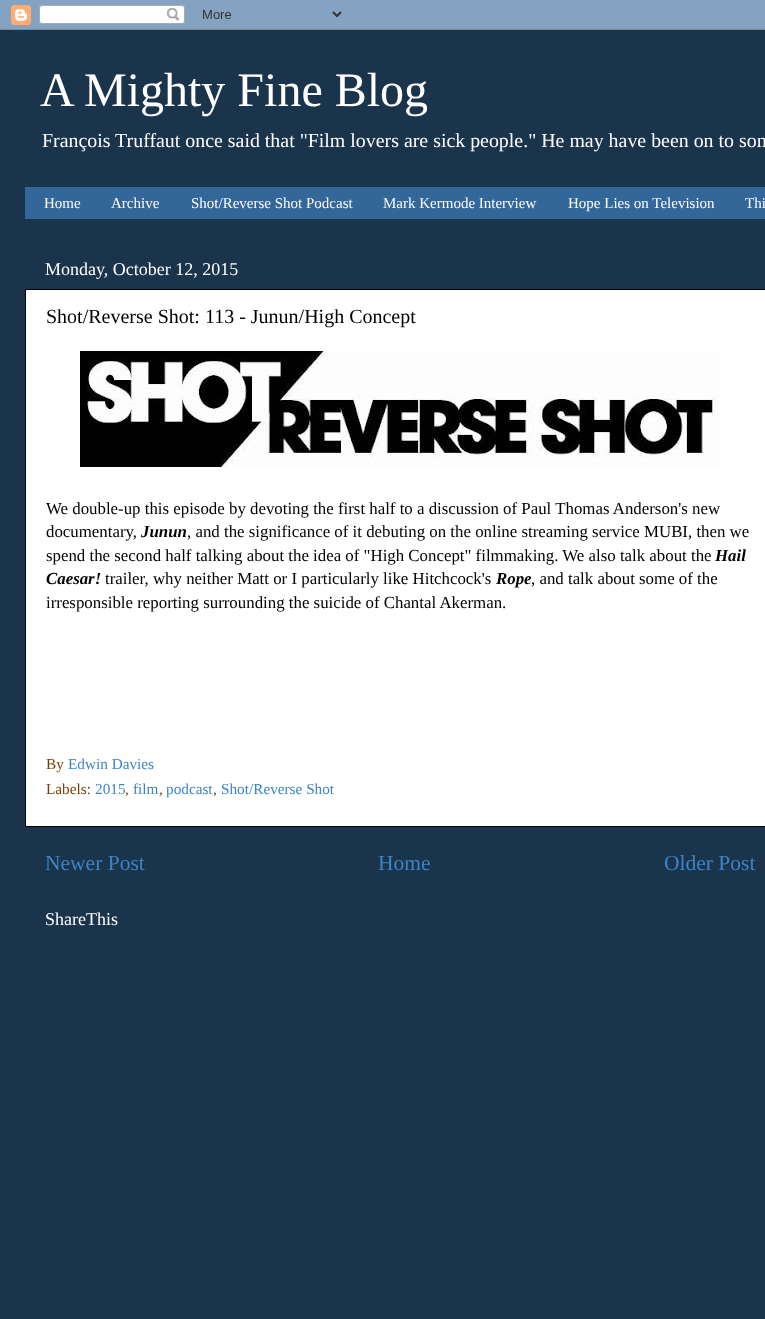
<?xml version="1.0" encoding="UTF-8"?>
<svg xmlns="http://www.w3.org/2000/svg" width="765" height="1319">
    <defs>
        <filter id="blur1" x="-50%" y="-200%" width="200%" height="500%"><feGaussianBlur stdDeviation="1.5"/></filter>
    </defs>
    <rect width="100%" height="100%" fill="#336699"/>
    <rect x="0" y="30" width="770" height="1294" fill="#000000" fill-opacity="0.15" filter="url(#blur1)"/>
    <image x="0" y="0" width="765" height="30" href="img_01.png"/>
    <rect x="0" y="30" width="765" height="1289" fill="#1A344C"/>
    <text x="40" y="106" font-family="Liberation Serif" font-size="48" fill="#FFFFFF">A Mighty Fine Blog</text>
    <text x="42" y="147" font-family="Liberation Serif" font-size="19.9" fill="#FFFFFF">François Truffaut once said that "Film lovers are sick people." He may have been on to som</text>
    <rect x="25" y="187" width="740" height="32" fill="#336699"/>
    <text x="44" y="208" font-family="Liberation Serif" font-size="15" fill="#FFFFFF">Home</text>
    <text x="111" y="208" font-family="Liberation Serif" font-size="15" fill="#FFFFFF">Archive</text>
    <text x="191" y="208" font-family="Liberation Serif" font-size="15" fill="#FFFFFF">Shot/Reverse Shot Podcast</text>
    <text x="383" y="208" font-family="Liberation Serif" font-size="15" fill="#FFFFFF">Mark Kermode Interview</text>
    <text x="568" y="208" font-family="Liberation Serif" font-size="15" fill="#FFFFFF">Hope Lies on Television</text>
    <text x="745" y="208" font-family="Liberation Serif" font-size="15" fill="#FFFFFF">Thi</text>
    <text x="45" y="275" font-family="Liberation Serif" font-size="18" fill="#FFFFFF">Monday, October 12, 2015</text>
    <rect x="25.5" y="289.5" width="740" height="537" fill="#FFFFFF" stroke="#000000"/>
    <text x="46" y="323" font-family="Liberation Serif" font-size="20" fill="#000000">Shot/Reverse Shot: 113 - Junun/High Concept</text>
    <image x="80" y="351" width="640" height="116" href="img_02.png"/>
    <text font-family="Liberation Serif" font-size="16.85" fill="#000000">
        <tspan x="46" y="514">We double-up this episode by devoting the first half to a discussion of Paul Thomas Anderson's new</tspan>
        <tspan x="46" y="537">documentary,</tspan>
    </text>
    <text x="141" y="537" font-family="Liberation Serif" font-size="16.85" font-weight="700" font-style="italic" fill="#000000">Junun</text>
    <text x="187" y="537" font-family="Liberation Serif" font-size="16.85" fill="#000000">, and the significance of it debuting on the online streaming service MUBI, then we</text>
    <text x="46" y="561" font-family="Liberation Serif" font-size="16.85" fill="#000000">spend the second half talking about the idea of "High Concept" filmmaking. We also talk about the</text>
    <text x="715" y="561" font-family="Liberation Serif" font-size="16.85" font-weight="700" font-style="italic" fill="#000000">Hail</text>
    <text x="46" y="584" font-family="Liberation Serif" font-size="16.85" font-weight="700" font-style="italic" fill="#000000">Caesar!</text>
    <text x="105" y="584" font-family="Liberation Serif" font-size="16.85" fill="#000000">trailer, why neither Matt or I particularly like Hitchcock's</text>
    <text x="496" y="584" font-family="Liberation Serif" font-size="16.85" font-weight="700" font-style="italic" fill="#000000">Rope</text>
    <text x="531" y="584" font-family="Liberation Serif" font-size="16.85" fill="#000000">, and talk about some of the</text>
    <text x="46" y="608" font-family="Liberation Serif" font-size="16.85" fill="#000000">irresponsible reporting surrounding the suicide of Chantal Akerman.</text>
    <text x="46" y="769" font-family="Liberation Serif" font-size="15.25" fill="#783F04">By</text>
    <text x="68" y="769" font-family="Liberation Serif" font-size="15.25" fill="#3D85C6">Edwin Davies</text>
    <text x="46" y="794" font-family="Liberation Serif" font-size="15.25" fill="#783F04">Labels:</text>
    <text x="95" y="794" font-family="Liberation Serif" font-size="15.25" fill="#3D85C6">2015</text>
    <text x="125" y="794" font-family="Liberation Serif" font-size="15.25" fill="#783F04">,</text>
    <text x="133" y="794" font-family="Liberation Serif" font-size="15.25" fill="#3D85C6">film</text>
    <text x="159" y="794" font-family="Liberation Serif" font-size="15.25" fill="#783F04">,</text>
    <text x="166" y="794" font-family="Liberation Serif" font-size="15.25" fill="#3D85C6">podcast</text>
    <text x="213" y="794" font-family="Liberation Serif" font-size="15.25" fill="#783F04">,</text>
    <text x="221" y="794" font-family="Liberation Serif" font-size="15.25" fill="#3D85C6">Shot/Reverse Shot</text>
    <text x="45" y="870" font-family="Liberation Serif" font-size="21.5" fill="#3D85C6">Newer Post</text>
    <text x="378" y="870" font-family="Liberation Serif" font-size="21.5" fill="#3D85C6">Home</text>
    <text x="664" y="870" font-family="Liberation Serif" font-size="21.5" fill="#3D85C6">Older Post</text>
    <text x="45" y="925" font-family="Liberation Serif" font-size="18" fill="#FFFFFF">ShareThis</text>
</svg>
